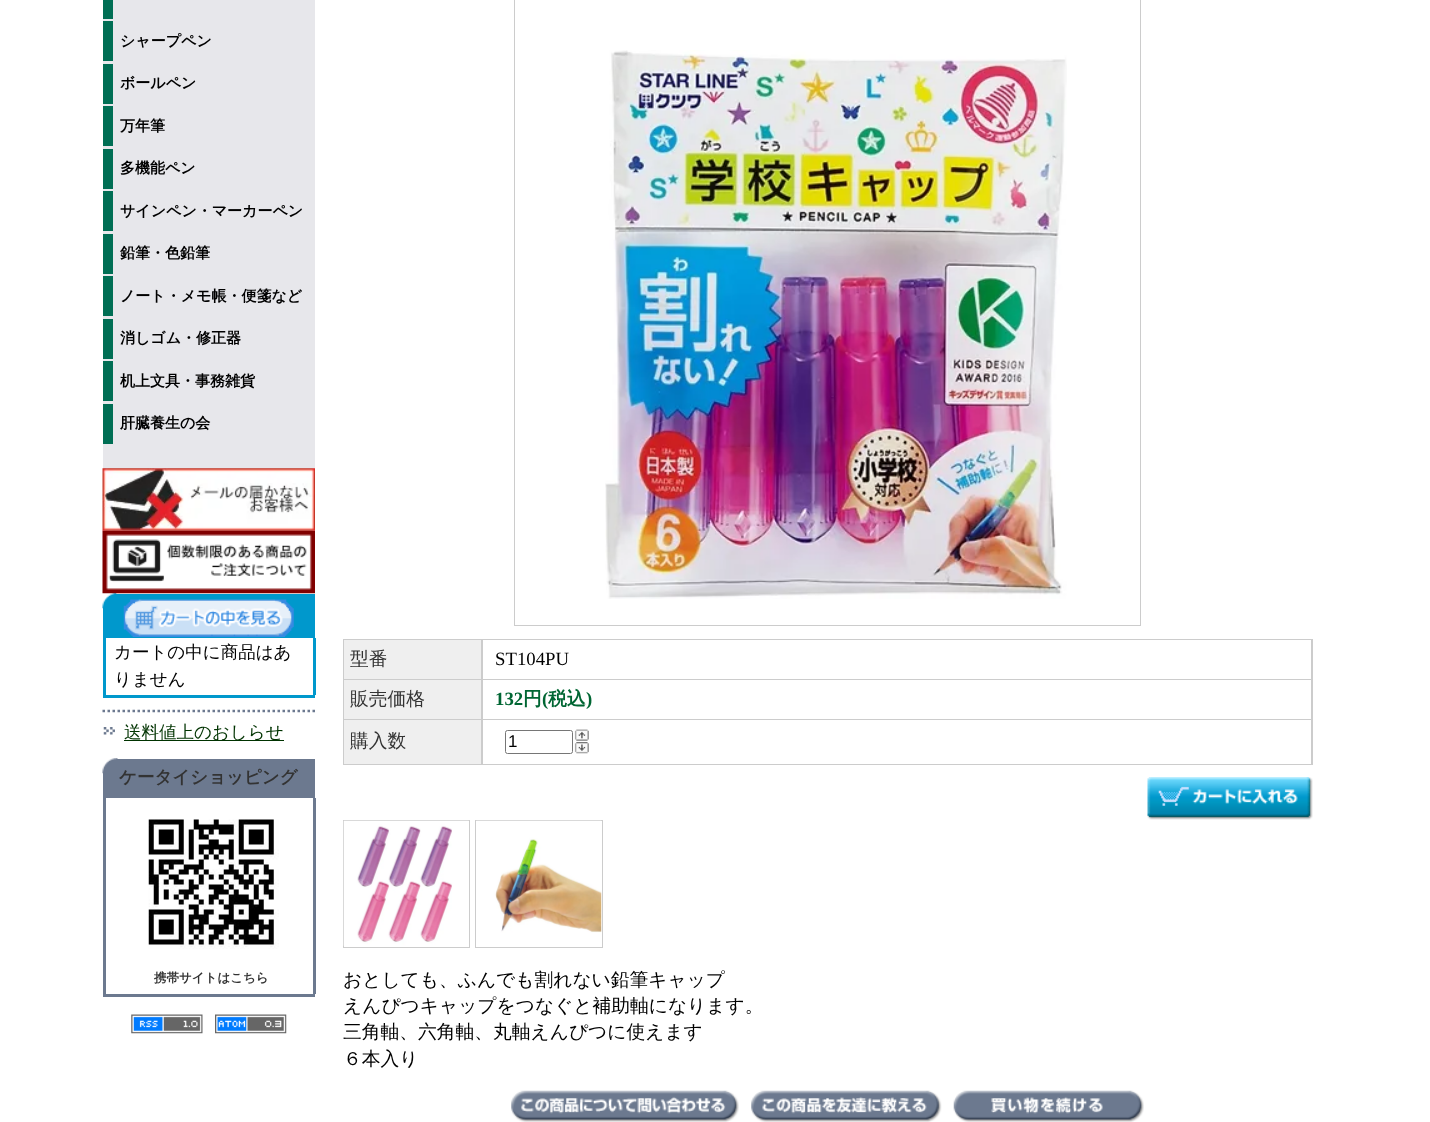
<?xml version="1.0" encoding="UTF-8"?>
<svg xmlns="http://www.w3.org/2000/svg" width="1430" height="1122">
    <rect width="100%" height="100%" fill="#FFFFFF"/>
    <rect x="103" y="0" width="212" height="469" fill="#E7E7EB"/>
    <rect x="103" y="0" width="10" height="19" fill="#006E54"/>
    <rect x="103" y="21" width="10" height="40" fill="#006E54"/>
    <text x="120" y="46" font-family="WenQuanYi Zen Hei" font-size="15" font-weight="700" fill="#000000">シャープペン</text>
    <rect x="103" y="64" width="10" height="40" fill="#006E54"/>
    <text x="120" y="88" font-family="WenQuanYi Zen Hei" font-size="15" font-weight="700" fill="#000000">ボールペン</text>
    <rect x="103" y="106" width="10" height="40" fill="#006E54"/>
    <text x="120" y="131" font-family="WenQuanYi Zen Hei" font-size="15" font-weight="700" fill="#000000">万年筆</text>
    <rect x="103" y="149" width="10" height="40" fill="#006E54"/>
    <text x="120" y="173" font-family="WenQuanYi Zen Hei" font-size="15" font-weight="700" fill="#000000">多機能ペン</text>
    <rect x="103" y="191" width="10" height="40" fill="#006E54"/>
    <text x="120" y="216" font-family="WenQuanYi Zen Hei" font-size="15" font-weight="700" fill="#000000">サインペン・マーカーペン</text>
    <rect x="103" y="234" width="10" height="40" fill="#006E54"/>
    <text x="120" y="258" font-family="WenQuanYi Zen Hei" font-size="15" font-weight="700" fill="#000000">鉛筆・色鉛筆</text>
    <rect x="103" y="276" width="10" height="40" fill="#006E54"/>
    <text x="120" y="301" font-family="WenQuanYi Zen Hei" font-size="15" font-weight="700" fill="#000000">ノート・メモ帳・便箋など</text>
    <rect x="103" y="319" width="10" height="40" fill="#006E54"/>
    <text x="120" y="343" font-family="WenQuanYi Zen Hei" font-size="15" font-weight="700" fill="#000000">消しゴム・修正器</text>
    <rect x="103" y="361" width="10" height="40" fill="#006E54"/>
    <text x="120" y="386" font-family="WenQuanYi Zen Hei" font-size="15" font-weight="700" fill="#000000">机上文具・事務雑貨</text>
    <rect x="103" y="404" width="10" height="40" fill="#006E54"/>
    <text x="120" y="428" font-family="WenQuanYi Zen Hei" font-size="15" font-weight="700" fill="#000000">肝臓養生の会</text>
    <image x="102" y="468" width="213" height="63" href="img_01.png"/>
    <rect x="103" y="594" width="212" height="44" fill="#0098CC"/>
    <image x="102" y="593" width="15" height="16" href="img_03.png"/>
    <image x="102" y="530" width="213" height="64" href="img_02.png"/>
    <rect x="103" y="695" width="212" height="3" fill="#0098CC"/>
    <image x="123" y="599" width="171" height="38" href="img_04.png"/>
    <rect x="313" y="638" width="3" height="57" fill="#0098CC"/>
    <rect x="103" y="638" width="3" height="57" fill="#0098CC"/>
    <text font-family="WenQuanYi Zen Hei" font-size="17.5" font-weight="500" fill="#000000">
        <tspan x="114" y="658">カートの中に商品はあ</tspan>
        <tspan x="114" y="685">りません</tspan>
    </text>
    <path d="M 102.5 711 H 315" fill="none" stroke="#6C798F" stroke-width="2.5" stroke-dasharray="2.5 2.5"/>
    <image x="103" y="727" width="12" height="8" href="img_05.png"/>
    <rect x="124" y="740" width="160" height="1" fill="#003300"/>
    <text x="124" y="738" font-family="WenQuanYi Zen Hei" font-size="17.5" font-weight="500" fill="#003300">送料値上のおしらせ</text>
    <rect x="103" y="994" width="212" height="3" fill="#6C798F"/>
    <rect x="103" y="759" width="212" height="39" fill="#6C798F"/>
    <image x="102" y="758" width="16" height="16" href="img_06.png"/>
    <text x="119" y="783" font-family="WenQuanYi Zen Hei" font-size="17.5" font-weight="700" fill="#333333">ケータイショッピング</text>
    <rect x="313" y="798" width="3" height="196" fill="#6C798F"/>
    <rect x="103" y="798" width="3" height="196" fill="#6C798F"/>
    <image x="148" y="819" width="131" height="130" href="img_07.png"/>
    <text x="154" y="982" font-family="WenQuanYi Zen Hei" font-size="12.5" font-weight="700" fill="#333333">携帯サイトはこちら</text>
    <image x="131" y="1014" width="72" height="20" href="img_08.png"/>
    <image x="215" y="1014" width="72" height="20" href="img_09.png"/>
    <rect x="514.5" y="-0.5" width="626" height="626" fill="none" stroke="#CCCCCC"/>
    <image x="605" y="50" width="462" height="549" href="img_10.png"/>
    <rect x="343" y="639" width="970" height="126" fill="#CCCCCC"/>
    <rect x="344" y="640" width="137" height="39" fill="#EFEFEF"/>
    <text x="350" y="665" font-family="WenQuanYi Zen Hei" font-size="18.75" font-weight="500" fill="#333333">型番</text>
    <rect x="483" y="640" width="828" height="39" fill="#FFFFFF"/>
    <text x="495" y="665" font-family="Liberation Serif" font-size="18.75" fill="#000000">ST104PU</text>
    <rect x="344" y="680" width="137" height="39" fill="#EFEFEF"/>
    <text x="350" y="705" font-family="WenQuanYi Zen Hei" font-size="18.75" font-weight="500" fill="#333333">販売価格</text>
    <rect x="483" y="680" width="828" height="39" fill="#FFFFFF"/>
    <text x="495" y="705" font-family="Liberation Serif" font-size="18.75" font-weight="700" fill="#006633">132</text>
    <text x="523" y="705" font-family="WenQuanYi Zen Hei" font-size="18.75" font-weight="700" fill="#006633">円</text>
    <text x="542" y="705" font-family="Liberation Serif" font-size="18.75" font-weight="700" fill="#006633">(</text>
    <text x="548" y="705" font-family="WenQuanYi Zen Hei" font-size="18.75" font-weight="700" fill="#006633">税込</text>
    <text x="586" y="705" font-family="Liberation Serif" font-size="18.75" font-weight="700" fill="#006633">)</text>
    <rect x="344" y="720" width="137" height="44" fill="#EFEFEF"/>
    <text x="350" y="747" font-family="WenQuanYi Zen Hei" font-size="18.75" font-weight="500" fill="#333333">購入数</text>
    <rect x="483" y="720" width="828" height="44" fill="#FFFFFF"/>
    <rect x="505.5" y="730.5" width="67" height="23" rx="2" fill="none" stroke="#767676"/>
    <text x="508" y="747" font-family="Liberation Sans" font-size="17" fill="#000000">1</text>
    <image x="574" y="729" width="15" height="12" href="img_11.png"/>
    <image x="574" y="742" width="15" height="12" href="img_12.png"/>
    <image x="1147" y="777" width="166" height="43" href="img_13.png"/>
    <rect x="343.5" y="820.5" width="126" height="127" fill="none" stroke="#CCCCCC"/>
    <image x="343" y="820" width="126" height="126" href="img_14.png"/>
    <rect x="475.5" y="820.5" width="127" height="127" fill="none" stroke="#CCCCCC"/>
    <image x="476" y="820" width="126" height="113" href="img_15.png"/>
    <text font-family="WenQuanYi Zen Hei" font-size="18.75" font-weight="500" fill="#000000">
        <tspan x="343" y="986">おとしても、ふんでも割れない鉛筆キャップ</tspan>
        <tspan x="343" y="1012">えんぴつキャップをつなぐと補助軸になります。</tspan>
        <tspan x="343" y="1038">三角軸、六角軸、丸軸えんぴつに使えます</tspan>
        <tspan x="343" y="1065">６本入り</tspan>
    </text>
    <image x="511" y="1090" width="228" height="32" href="img_16.png"/>
    <image x="751" y="1090" width="191" height="32" href="img_17.png"/>
    <image x="953" y="1090" width="191" height="32" href="img_18.png"/>
</svg>
